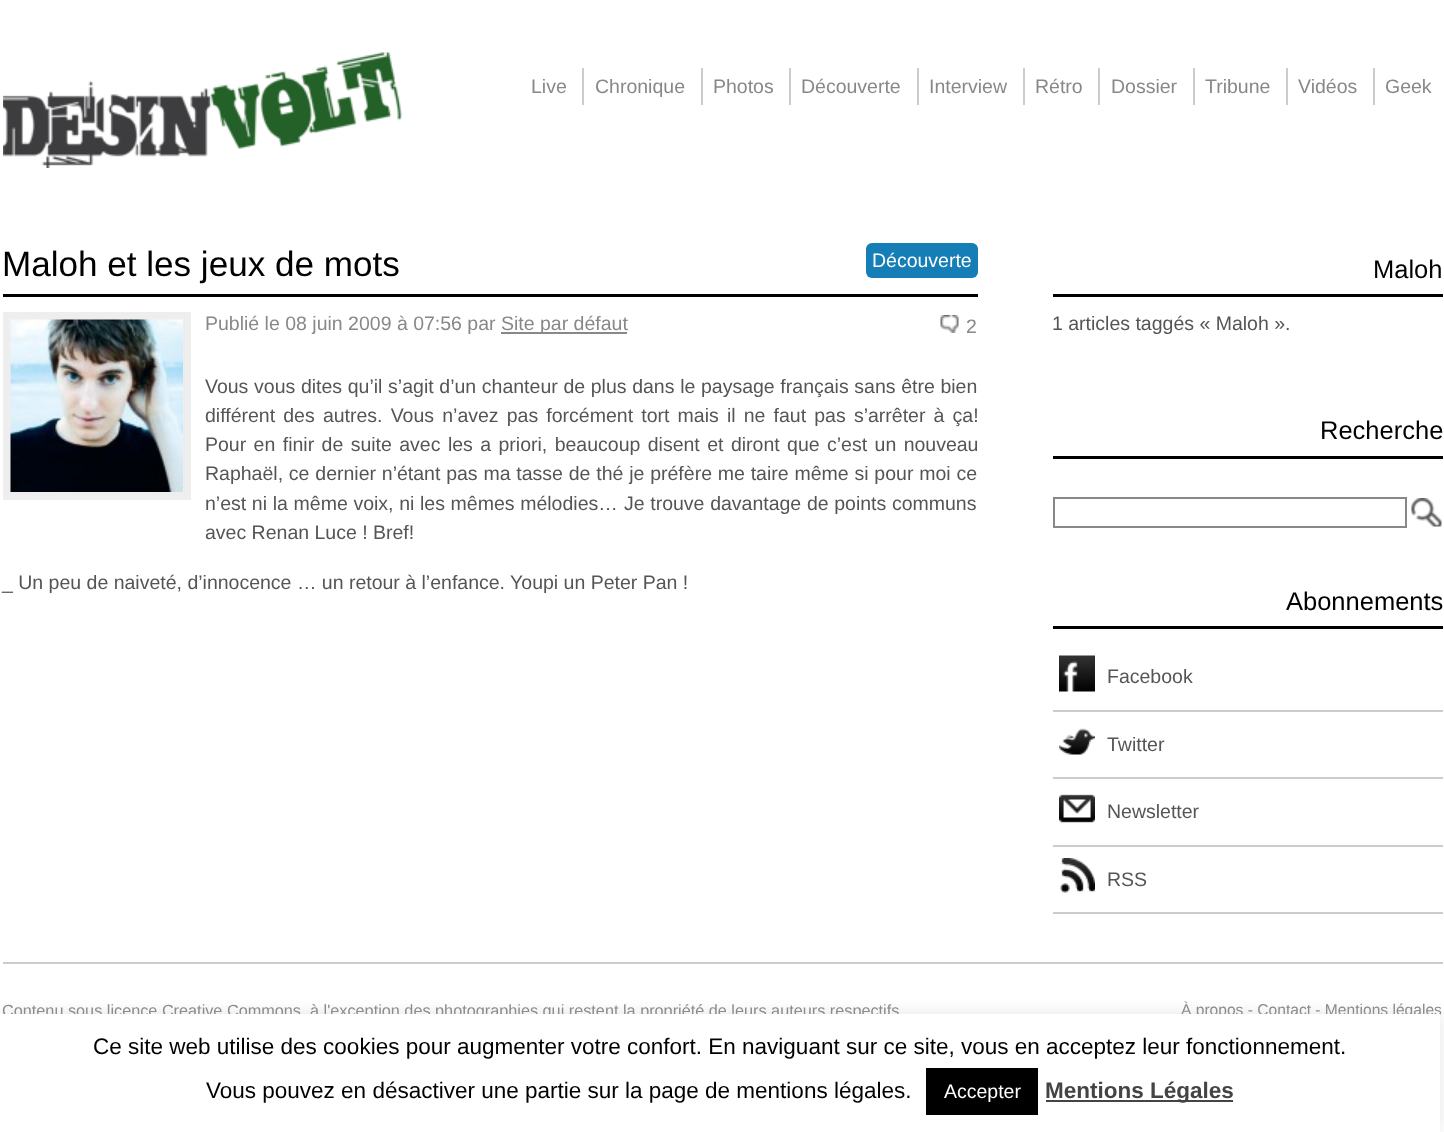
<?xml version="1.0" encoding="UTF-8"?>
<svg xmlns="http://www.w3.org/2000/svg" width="1444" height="1132">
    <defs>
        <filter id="blur1" x="-50%" y="-200%" width="200%" height="500%"><feGaussianBlur stdDeviation="7.5"/></filter>
    </defs>
    <rect width="100%" height="100%" fill="#FFFFFF"/>
    <image x="3" y="52" width="399" height="116" href="img_01.png"/>
    <text x="531" y="93" font-family="Liberation Sans" font-size="19.5" fill="#888888">Live</text>
    <text x="595" y="93" font-family="Liberation Sans" font-size="19.5" fill="#888888">Chronique</text>
    <rect x="582" y="68" width="2" height="37" fill="#CCCCCC"/>
    <text x="713" y="93" font-family="Liberation Sans" font-size="19.5" fill="#888888">Photos</text>
    <rect x="701" y="68" width="2" height="37" fill="#CCCCCC"/>
    <text x="801" y="93" font-family="Liberation Sans" font-size="19.5" fill="#888888">Découverte</text>
    <rect x="789" y="68" width="2" height="37" fill="#CCCCCC"/>
    <text x="929" y="93" font-family="Liberation Sans" font-size="19.5" fill="#888888">Interview</text>
    <rect x="917" y="68" width="2" height="37" fill="#CCCCCC"/>
    <text x="1035" y="93" font-family="Liberation Sans" font-size="19.5" fill="#888888">Rétro</text>
    <rect x="1023" y="68" width="2" height="37" fill="#CCCCCC"/>
    <text x="1111" y="93" font-family="Liberation Sans" font-size="19.5" fill="#888888">Dossier</text>
    <rect x="1098" y="68" width="2" height="37" fill="#CCCCCC"/>
    <text x="1205" y="93" font-family="Liberation Sans" font-size="19.5" fill="#888888">Tribune</text>
    <rect x="1193" y="68" width="2" height="37" fill="#CCCCCC"/>
    <text x="1298" y="93" font-family="Liberation Sans" font-size="19.5" fill="#888888">Vidéos</text>
    <rect x="1286" y="68" width="2" height="37" fill="#CCCCCC"/>
    <text x="1385" y="93" font-family="Liberation Sans" font-size="19.5" fill="#888888">Geek</text>
    <rect x="1373" y="68" width="2" height="37" fill="#CCCCCC"/>
    <rect x="3" y="294" width="975" height="3" fill="#000000"/>
    <text x="2" y="276" font-family="Liberation Sans" font-size="35.1" fill="#000000">Maloh et les jeux de mots</text>
    <rect x="866" y="243" width="112" height="35" rx="6" fill="#167EB6"/>
    <text x="872" y="267" font-family="Liberation Sans" font-size="19.5" fill="#FFFFFF">Découverte</text>
    <rect x="7" y="316" width="180" height="180" fill="none" stroke="#EEEEEE" stroke-width="8"/>
    <image x="10" y="319" width="173" height="173" href="img_02.png"/>
    <text x="205" y="330" font-family="Liberation Sans" font-size="19.5" fill="#888888">Publié le 08 juin 2009 à 07:56 par</text>
    <rect x="501" y="332" width="126" height="2" fill="#888888"/>
    <text x="501" y="330" font-family="Liberation Sans" font-size="19.5" fill="#888888">Site par défaut</text>
    <image x="940" y="315" width="19" height="18" href="img_03.png"/>
    <text x="966" y="333" font-family="Liberation Sans" font-size="19.5" fill="#888888">2</text>
    <text font-family="Liberation Sans" font-size="19.5" fill="#555555">
        <tspan x="205" y="393" word-spacing="0.25">Vous vous dites qu’il s’agit d’un chanteur de plus dans le paysage français sans être bien</tspan>
        <tspan x="205" y="422" word-spacing="2.75">différent des autres. Vous n’avez pas forcément tort mais il ne faut pas s’arrêter à ça!</tspan>
        <tspan x="205" y="451" word-spacing="2">Pour en finir de suite avec les a priori, beaucoup disent et diront que c’est un nouveau</tspan>
        <tspan x="205" y="480" word-spacing="0.4">Raphaël, ce dernier n’étant pas ma tasse de thé je préfère me taire même si pour moi ce</tspan>
        <tspan x="205" y="510" word-spacing="0.25">n’est ni la même voix, ni les mêmes mélodies…</tspan>
    </text>
    <text x="624" y="510" word-spacing="0.25" font-family="Liberation Sans" font-size="19.5" fill="#555555">Je trouve davantage de points communs</text>
    <text x="205" y="539" font-family="Liberation Sans" font-size="19.5" fill="#555555">avec Renan Luce ! Bref!</text>
    <text x="2" y="589" font-family="Liberation Sans" font-size="19.5" fill="#555555">_ Un peu de naiveté, d’innocence … un retour à l’enfance. Youpi un Peter Pan !</text>
    <rect x="1053" y="294" width="390" height="3" fill="#000000"/>
    <text x="1373" y="278" font-family="Liberation Sans" font-size="25.5" fill="#000000">Maloh</text>
    <text x="1052" y="330" font-family="Liberation Sans" font-size="19.5" fill="#555555">1 articles taggés « Maloh ».</text>
    <rect x="1053" y="456" width="390" height="3" fill="#000000"/>
    <text x="1320" y="439" font-family="Liberation Sans" font-size="25.5" fill="#000000">Recherche</text>
    <rect x="1054" y="498" width="352" height="29" fill="none" stroke="#888888" stroke-width="2"/>
    <image x="1411" y="498" width="31" height="29" href="img_04.png"/>
    <rect x="1053" y="626" width="390" height="3" fill="#000000"/>
    <text x="1286" y="610" font-family="Liberation Sans" font-size="25.5" fill="#000000">Abonnements</text>
    <rect x="1053" y="710" width="390" height="2" fill="#CCCCCC"/>
    <image x="1059" y="655" width="36" height="37" href="img_05.png"/>
    <text x="1107" y="683" font-family="Liberation Sans" font-size="19.5" fill="#555555">Facebook</text>
    <rect x="1053" y="777" width="390" height="2" fill="#CCCCCC"/>
    <image x="1059" y="728" width="36" height="27" href="img_06.png"/>
    <text x="1107" y="751" font-family="Liberation Sans" font-size="19.5" fill="#555555">Twitter</text>
    <rect x="1053" y="845" width="390" height="2" fill="#CCCCCC"/>
    <image x="1059" y="794" width="36" height="29" href="img_07.png"/>
    <text x="1107" y="818" font-family="Liberation Sans" font-size="19.5" fill="#555555">Newsletter</text>
    <rect x="1053" y="912" width="390" height="2" fill="#CCCCCC"/>
    <image x="1060" y="858" width="35" height="35" href="img_08.png"/>
    <text x="1107" y="886" font-family="Liberation Sans" font-size="19.5" fill="#555555">RSS</text>
    <rect x="3" y="962" width="1440" height="2" fill="#CCCCCC"/>
    <text x="2" y="1016" font-family="Liberation Sans" font-size="16.25" fill="#888888">Contenu sous licence Creative Commons</text>
    <text x="310" y="1016" font-family="Liberation Sans" font-size="16.25" fill="#888888">à l'exception des photographies qui restent la propriété de leurs auteurs respectifs</text>
    <text x="1181" y="1015" font-family="Liberation Sans" font-size="15.6" fill="#888888">À propos - Contact - Mentions légales</text>
    <rect x="0" y="1013" width="1440" height="118" fill="#ACABAB" fill-opacity="0.3" filter="url(#blur1)"/>
    <rect x="0" y="1014" width="1440" height="118" fill="#FFFFFF"/>
    <text x="93" y="1054" font-family="Liberation Sans" font-size="22.5" fill="#000000">Ce site web utilise des cookies pour augmenter votre confort. En naviguant sur ce site, vous en acceptez leur fonctionnement.</text>
    <text x="206" y="1098" font-family="Liberation Sans" font-size="22.5" fill="#000000">Vous pouvez en désactiver une partie sur la page de mentions légales.</text>
    <rect x="926" y="1068" width="112" height="47" fill="#000000"/>
    <text x="944" y="1098" font-family="Liberation Sans" font-size="19.5" fill="#FFFFFF">Accepter</text>
    <rect x="1046" y="1100" width="187" height="2" fill="#444444"/>
    <text x="1045" y="1098" font-family="Liberation Sans" font-size="22.5" font-weight="700" fill="#444444">Mentions Légales</text>
</svg>
